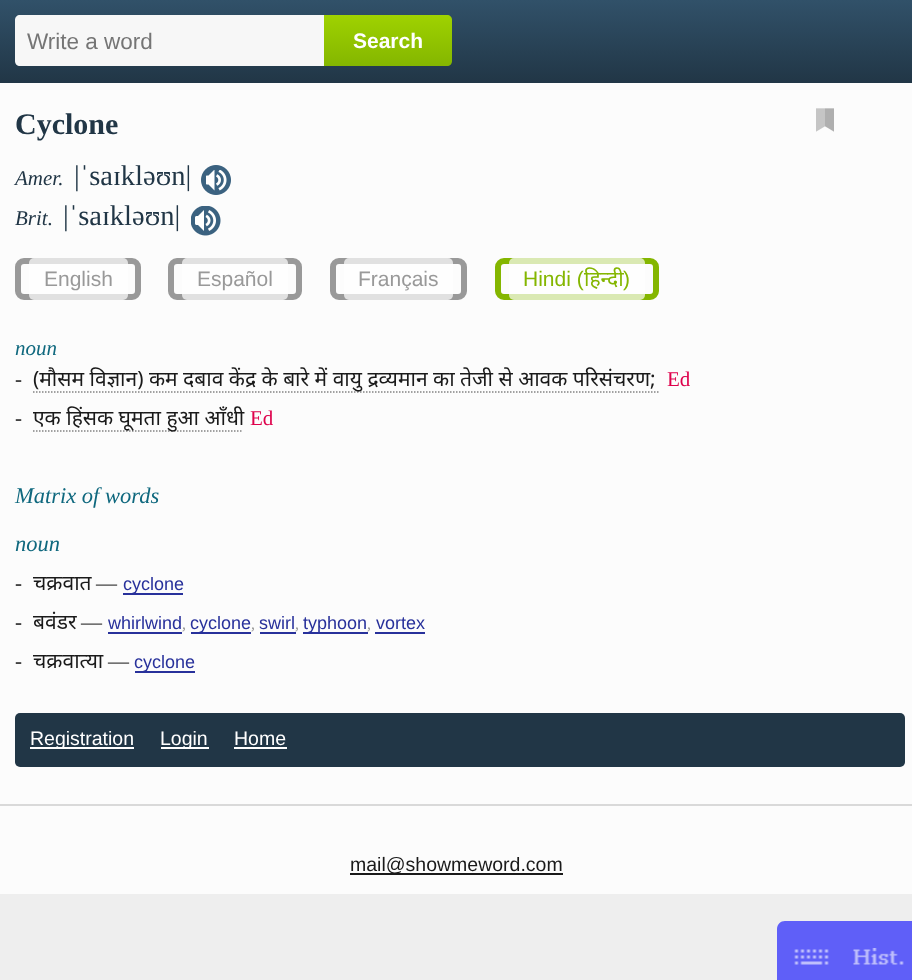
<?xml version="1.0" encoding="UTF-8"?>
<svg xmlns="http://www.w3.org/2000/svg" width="912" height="980">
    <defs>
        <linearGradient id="g1" gradientUnits="userSpaceOnUse" x1="456" y1="0" x2="456" y2="83"><stop offset="0" stop-color="#315169"/><stop offset="1" stop-color="#213646"/></linearGradient>
        <linearGradient id="g2" gradientUnits="userSpaceOnUse" x1="388" y1="15" x2="388" y2="66"><stop offset="0" stop-color="#9FD200"/><stop offset="1" stop-color="#84B600"/></linearGradient>
    </defs>
    <rect width="100%" height="100%" fill="#EEEEEE"/>
    <rect x="0" y="0" width="912" height="83" fill="url(#g1)"/>
    <path d="M 20 15 H 324 V 66 H 20 C 17 66 15 64 15 61 V 20 C 15 17 17 15 20 15 Z" fill="#F7F7F7"/>
    <text x="27" y="49" font-family="Liberation Sans" font-size="22.5" fill="#757575">Write a word</text>
    <path d="M 324 15 H 447 C 450 15 452 17 452 20 V 61 C 452 64 450 66 447 66 H 324 Z" fill="url(#g2)"/>
    <text x="353" y="48" font-family="Liberation Sans" font-size="21" font-weight="700" fill="#FFFFFF">Search</text>
    <rect x="0" y="83" width="912" height="721" fill="#FCFCFC"/>
    <text x="15" y="134" font-family="Liberation Serif" font-size="30" font-weight="700" fill="#213646">Cyclone</text>
    <image x="816" y="108" width="18" height="24" href="img_01.png"/>
    <text x="15" y="185" font-family="Liberation Serif" font-size="21" font-style="italic" fill="#213646">Amer.</text>
    <text x="74" y="185" font-family="Liberation Serif" font-size="28.5" fill="#213646">|ˈsaɪkləʊn|</text>
    <image x="201" y="165" width="30" height="30" href="img_02.png"/>
    <text x="15" y="225" font-family="Liberation Serif" font-size="21" font-style="italic" fill="#213646">Brit.</text>
    <text x="63" y="225" font-family="Liberation Serif" font-size="28.5" fill="#213646">|ˈsaɪkləʊn|</text>
    <image x="191" y="206" width="30" height="30" href="img_03.png"/>
    <rect x="18" y="261" width="120" height="36" rx="6" fill="none" stroke="#999999" stroke-width="6"/>
    <rect x="29" y="258" width="99" height="42" rx="5" fill="#FFFFFF" fill-opacity="0.7"/>
    <text x="44" y="286" font-family="Liberation Sans" font-size="21" fill="#999999">English</text>
    <rect x="171" y="261" width="128" height="36" rx="6" fill="none" stroke="#999999" stroke-width="6"/>
    <rect x="182" y="258" width="106" height="42" rx="5" fill="#FFFFFF" fill-opacity="0.7"/>
    <text x="197" y="286" font-family="Liberation Sans" font-size="21" fill="#999999">Español</text>
    <rect x="333" y="261" width="131" height="36" rx="6" fill="none" stroke="#999999" stroke-width="6"/>
    <rect x="344" y="258" width="109" height="42" rx="5" fill="#FFFFFF" fill-opacity="0.7"/>
    <text x="358" y="286" font-family="Liberation Sans" font-size="21" fill="#999999">Français</text>
    <rect x="498" y="261" width="158" height="36" rx="6" fill="none" stroke="#84B600" stroke-width="6"/>
    <rect x="509" y="258" width="136" height="42" rx="5" fill="#FFFFFF" fill-opacity="0.7"/>
    <text x="523" y="286" font-family="Liberation Sans" font-size="21" fill="#84B600">Hindi (</text>
    <text x="584" y="286" font-family="Noto Sans" font-size="21" fill="#84B600">हिन्दी</text>
    <text x="623" y="286" font-family="Liberation Sans" font-size="21" fill="#84B600">)</text>
    <text x="15" y="355" font-family="Liberation Serif" font-size="21" font-style="italic" fill="#0F687E">noun</text>
    <text x="15" y="386" font-family="Liberation Serif" font-size="21" fill="#1A1A1A">-</text>
    <path d="M 33 392 H 658.5" fill="none" stroke="#838383" stroke-width="1.5" stroke-dasharray="1.5 1.5"/>
    <text x="33" y="386" font-family="Noto Sans" font-size="21" fill="#1A1A1A">(मौसम विज्ञान) कम दबाव केंद्र के बारे में वायु द्रव्यमान का तेजी से आवक परिसंचरण;</text>
    <text x="667" y="386" font-family="Liberation Serif" font-size="21" fill="#DE004B">Ed</text>
    <text x="15" y="425" font-family="Liberation Serif" font-size="21" fill="#1A1A1A">-</text>
    <path d="M 33 431 H 243" fill="none" stroke="#838383" stroke-width="1.5" stroke-dasharray="1.5 1.5"/>
    <text x="33" y="425" font-family="Noto Sans" font-size="21" fill="#1A1A1A">एक हिंसक घूमता हुआ आँधी</text>
    <text x="250" y="425" font-family="Liberation Serif" font-size="21" fill="#DE004B">Ed</text>
    <text x="15" y="503" font-family="Liberation Serif" font-size="22.5" font-style="italic" fill="#0F687E">Matrix of words</text>
    <text x="15" y="551" font-family="Liberation Serif" font-size="22.5" font-style="italic" fill="#0F687E">noun</text>
    <text x="15" y="590" font-family="Liberation Serif" font-size="21" fill="#1A1A1A">-</text>
    <text x="33" y="590" font-family="Noto Sans" font-size="21" fill="#1A1A1A">चक्रवात</text>
    <text x="96" y="590" font-family="Liberation Serif" font-size="21" fill="#1A1A1A">—</text>
    <rect x="123" y="593" width="60" height="2" fill="#28319B"/>
    <text x="123" y="590" font-family="Liberation Sans" font-size="18" fill="#28319B">cyclone</text>
    <text x="15" y="629" font-family="Liberation Serif" font-size="21" fill="#1A1A1A">-</text>
    <text x="33" y="629" font-family="Noto Sans" font-size="21" fill="#1A1A1A">बवंडर</text>
    <text x="81" y="629" font-family="Liberation Serif" font-size="21" fill="#1A1A1A">—</text>
    <text x="108" y="629" font-family="Liberation Sans" font-size="18" fill="#28319B">whirlwind</text>
    <rect x="191" y="632" width="60" height="2" fill="#28319B"/>
    <text x="190" y="629" font-family="Liberation Sans" font-size="18" fill="#28319B">cyclone</text>
    <text x="259" y="629" font-family="Liberation Sans" font-size="18" fill="#28319B">swirl</text>
    <rect x="303" y="632" width="65" height="2" fill="#28319B"/>
    <text x="303" y="629" font-family="Liberation Sans" font-size="18" fill="#28319B">typhoon</text>
    <text x="376" y="629" font-family="Liberation Sans" font-size="18" fill="#28319B">vortex</text>
    <text x="182" y="629" font-family="Liberation Serif" font-size="16" font-style="italic" fill="#999999">,</text>
    <rect x="108" y="632" width="74" height="2" fill="#28319B"/>
    <text x="251" y="629" font-family="Liberation Serif" font-size="16" font-style="italic" fill="#999999">,</text>
    <text x="295" y="629" font-family="Liberation Serif" font-size="16" font-style="italic" fill="#999999">,</text>
    <rect x="260" y="632" width="36" height="2" fill="#28319B"/>
    <text x="367" y="629" font-family="Liberation Serif" font-size="16" font-style="italic" fill="#999999">,</text>
    <rect x="375" y="632" width="50" height="2" fill="#28319B"/>
    <text x="15" y="668" font-family="Liberation Serif" font-size="21" fill="#1A1A1A">-</text>
    <text x="33" y="668" font-family="Noto Sans" font-size="21" fill="#1A1A1A">चक्रवात्या</text>
    <text x="108" y="668" font-family="Liberation Serif" font-size="21" fill="#1A1A1A">—</text>
    <rect x="135" y="671" width="60" height="2" fill="#28319B"/>
    <text x="134" y="668" font-family="Liberation Sans" font-size="18" fill="#28319B">cyclone</text>
    <rect x="15" y="713" width="890" height="54" rx="5" fill="#213646"/>
    <rect x="30" y="747" width="104" height="2" fill="#FFFFFF"/>
    <text x="30" y="745" font-family="Liberation Sans" font-size="19.5" fill="#FFFFFF">Registration</text>
    <rect x="161" y="747" width="48" height="2" fill="#FFFFFF"/>
    <text x="160" y="745" font-family="Liberation Sans" font-size="19.5" fill="#FFFFFF">Login</text>
    <text x="234" y="745" font-family="Liberation Sans" font-size="19.5" fill="#FFFFFF">Home</text>
    <rect x="234" y="747" width="53" height="2" fill="#FFFFFF"/>
    <rect x="0" y="806" width="912" height="88" fill="#FCFCFC"/>
    <rect x="0" y="804" width="912" height="2" fill="#D9D9D9"/>
    <rect x="350" y="873" width="213" height="2" fill="#1A1A1A"/>
    <text x="350" y="871" font-family="Liberation Sans" font-size="19.5" fill="#1A1A1A">mail@showmeword.com</text>
    <path d="M 785 921 H 912 V 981 H 777 V 929 C 777 924.5 780.5 921 785 921 Z" fill="#5F5FF8"/>
    <image x="794" y="949" width="35" height="16" href="img_04.png"/>
    <image x="853" y="948" width="51" height="17" href="img_05.png"/>
</svg>
